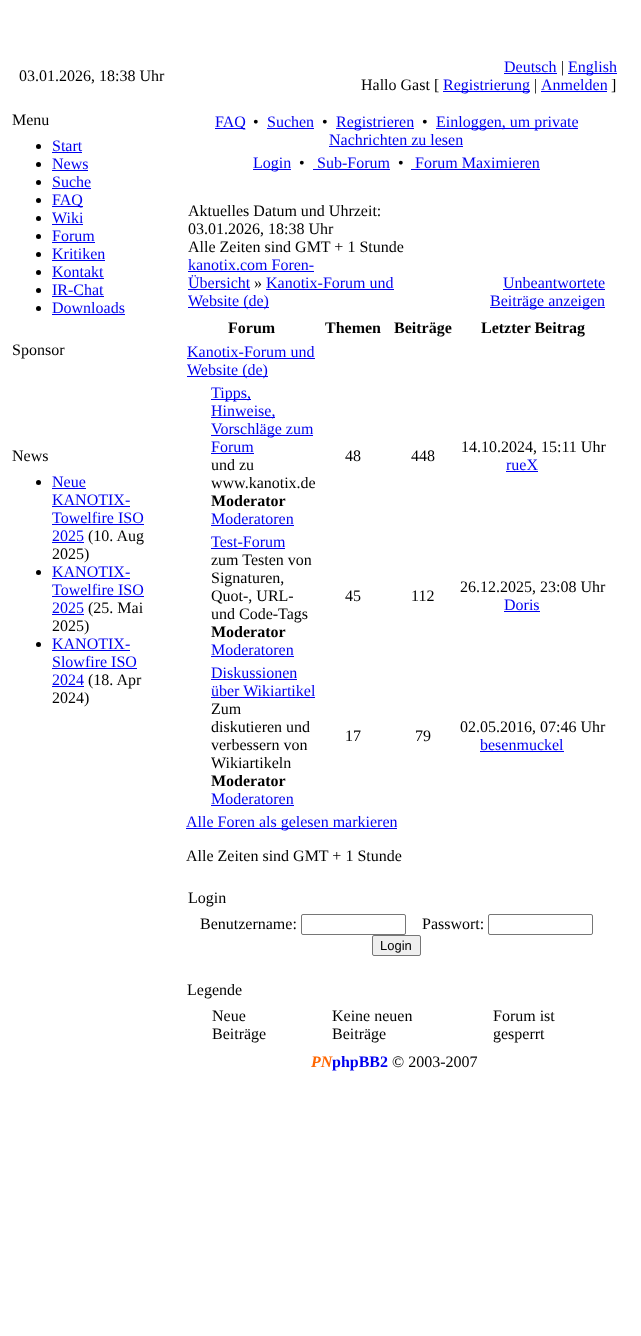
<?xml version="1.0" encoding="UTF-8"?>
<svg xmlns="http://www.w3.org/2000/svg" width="641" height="1336">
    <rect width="100%" height="100%" fill="#FFFFFF"/>
    <text x="19" y="81" font-family="Liberation Serif" font-size="16" fill="#000000">03.01.2026, 18:38 Uhr</text>
    <text x="504" y="72" font-family="Liberation Serif" font-size="16" fill="#0000EE">Deutsch</text>
    <rect x="504" y="73" width="53" height="1" fill="#0000EE"/>
    <text x="561" y="72" font-family="Liberation Serif" font-size="16" fill="#000000">|</text>
    <rect x="568" y="73" width="49" height="1" fill="#0000EE"/>
    <text x="568" y="72" font-family="Liberation Serif" font-size="16" fill="#0000EE">English</text>
    <text x="361" y="90" font-family="Liberation Serif" font-size="16" fill="#000000">Hallo Gast [</text>
    <rect x="443" y="91" width="87" height="1" fill="#0000EE"/>
    <text x="443" y="90" font-family="Liberation Serif" font-size="16" fill="#0000EE">Registrierung</text>
    <text x="534" y="90" font-family="Liberation Serif" font-size="16" fill="#000000">|</text>
    <text x="541" y="90" font-family="Liberation Serif" font-size="16" fill="#0000EE">Anmelden</text>
    <rect x="541" y="91" width="66" height="1" fill="#0000EE"/>
    <text x="611" y="90" font-family="Liberation Serif" font-size="16" fill="#000000">]</text>
    <text x="12" y="125" font-family="Liberation Serif" font-size="16" fill="#000000">Menu</text>
    <circle cx="38.5" cy="146.5" r="2.5" fill="#000000"/>
    <text x="52" y="151" font-family="Liberation Serif" font-size="16" fill="#0000EE">Start</text>
    <rect x="52" y="152" width="30" height="1" fill="#0000EE"/>
    <circle cx="38.5" cy="164.5" r="2.5" fill="#000000"/>
    <text x="52" y="169" font-family="Liberation Serif" font-size="16" fill="#0000EE">News</text>
    <rect x="52" y="170" width="36" height="1" fill="#0000EE"/>
    <circle cx="38.5" cy="182.5" r="2.5" fill="#000000"/>
    <text x="52" y="187" font-family="Liberation Serif" font-size="16" fill="#0000EE">Suche</text>
    <rect x="52" y="188" width="39" height="1" fill="#0000EE"/>
    <circle cx="38.5" cy="200.5" r="2.5" fill="#000000"/>
    <rect x="52" y="206" width="31" height="1" fill="#0000EE"/>
    <text x="52" y="205" font-family="Liberation Serif" font-size="16" fill="#0000EE">FAQ</text>
    <circle cx="38.5" cy="218.5" r="2.5" fill="#000000"/>
    <text x="52" y="223" font-family="Liberation Serif" font-size="16" fill="#0000EE">Wiki</text>
    <rect x="52" y="224" width="31" height="1" fill="#0000EE"/>
    <circle cx="38.5" cy="236.5" r="2.5" fill="#000000"/>
    <text x="52" y="241" font-family="Liberation Serif" font-size="16" fill="#0000EE">Forum</text>
    <rect x="52" y="242" width="43" height="1" fill="#0000EE"/>
    <circle cx="38.5" cy="254.5" r="2.5" fill="#000000"/>
    <text x="52" y="259" font-family="Liberation Serif" font-size="16" fill="#0000EE">Kritiken</text>
    <rect x="52" y="260" width="53" height="1" fill="#0000EE"/>
    <circle cx="38.5" cy="272.5" r="2.5" fill="#000000"/>
    <text x="52" y="277" font-family="Liberation Serif" font-size="16" fill="#0000EE">Kontakt</text>
    <rect x="52" y="278" width="52" height="1" fill="#0000EE"/>
    <circle cx="38.5" cy="290.5" r="2.5" fill="#000000"/>
    <text x="52" y="295" font-family="Liberation Serif" font-size="16" fill="#0000EE">IR-Chat</text>
    <rect x="52" y="296" width="52" height="1" fill="#0000EE"/>
    <circle cx="38.5" cy="308.5" r="2.5" fill="#000000"/>
    <text x="52" y="313" font-family="Liberation Serif" font-size="16" fill="#0000EE">Downloads</text>
    <rect x="52" y="314" width="73" height="1" fill="#0000EE"/>
    <text x="12" y="355" font-family="Liberation Serif" font-size="16" fill="#000000">Sponsor</text>
    <text x="12" y="461" font-family="Liberation Serif" font-size="16" fill="#000000">News</text>
    <circle cx="38.5" cy="482.5" r="2.5" fill="#000000"/>
    <text x="52" y="487" font-family="Liberation Serif" font-size="16" fill="#0000EE">Neue</text>
    <rect x="52" y="488" width="34" height="1" fill="#0000EE"/>
    <text x="52" y="505" font-family="Liberation Serif" font-size="16" fill="#0000EE">KANOTIX-</text>
    <rect x="52" y="506" width="78" height="1" fill="#0000EE"/>
    <text x="52" y="523" font-family="Liberation Serif" font-size="16" fill="#0000EE">Towelfire ISO</text>
    <rect x="52" y="524" width="92" height="1" fill="#0000EE"/>
    <text x="52" y="541" font-family="Liberation Serif" font-size="16" fill="#0000EE">2025</text>
    <rect x="52" y="542" width="32" height="1" fill="#0000EE"/>
    <text x="88" y="541" font-family="Liberation Serif" font-size="16" fill="#000000">(10. Aug</text>
    <text x="52" y="559" font-family="Liberation Serif" font-size="16" fill="#000000">2025)</text>
    <circle cx="38.5" cy="572.5" r="2.5" fill="#000000"/>
    <text x="52" y="577" font-family="Liberation Serif" font-size="16" fill="#0000EE">KANOTIX-</text>
    <rect x="52" y="578" width="78" height="1" fill="#0000EE"/>
    <text x="52" y="595" font-family="Liberation Serif" font-size="16" fill="#0000EE">Towelfire ISO</text>
    <rect x="52" y="596" width="92" height="1" fill="#0000EE"/>
    <text x="52" y="613" font-family="Liberation Serif" font-size="16" fill="#0000EE">2025</text>
    <rect x="52" y="614" width="32" height="1" fill="#0000EE"/>
    <text x="88" y="613" font-family="Liberation Serif" font-size="16" fill="#000000">(25. Mai</text>
    <text x="52" y="631" font-family="Liberation Serif" font-size="16" fill="#000000">2025)</text>
    <circle cx="38.5" cy="644.5" r="2.5" fill="#000000"/>
    <text x="52" y="649" font-family="Liberation Serif" font-size="16" fill="#0000EE">KANOTIX-</text>
    <rect x="52" y="650" width="78" height="1" fill="#0000EE"/>
    <text x="52" y="667" font-family="Liberation Serif" font-size="16" fill="#0000EE">Slowfire ISO</text>
    <rect x="52" y="668" width="85" height="1" fill="#0000EE"/>
    <text x="52" y="685" font-family="Liberation Serif" font-size="16" fill="#0000EE">2024</text>
    <rect x="52" y="686" width="32" height="1" fill="#0000EE"/>
    <text x="88" y="685" font-family="Liberation Serif" font-size="16" fill="#000000">(18. Apr</text>
    <text x="52" y="703" font-family="Liberation Serif" font-size="16" fill="#000000">2024)</text>
    <rect x="215" y="128" width="30" height="1" fill="#0000EE"/>
    <text x="215" y="127" font-family="Liberation Serif" font-size="16" fill="#0000EE">FAQ</text>
    <text x="253" y="127" font-family="Liberation Serif" font-size="16" fill="#000000">•</text>
    <text x="267" y="127" font-family="Liberation Serif" font-size="16" fill="#0000EE">Suchen</text>
    <rect x="267" y="128" width="47" height="1" fill="#0000EE"/>
    <text x="322" y="127" font-family="Liberation Serif" font-size="16" fill="#000000">•</text>
    <rect x="336" y="128" width="78" height="1" fill="#0000EE"/>
    <text x="336" y="127" font-family="Liberation Serif" font-size="16" fill="#0000EE">Registrieren</text>
    <text x="422" y="127" font-family="Liberation Serif" font-size="16" fill="#000000">•</text>
    <rect x="436" y="128" width="142" height="1" fill="#0000EE"/>
    <text x="436" y="127" font-family="Liberation Serif" font-size="16" fill="#0000EE">Einloggen, um private</text>
    <text x="329" y="145" font-family="Liberation Serif" font-size="16" fill="#0000EE">Nachrichten zu lesen</text>
    <rect x="329" y="146" width="134" height="1" fill="#0000EE"/>
    <rect x="253" y="169" width="38" height="1" fill="#0000EE"/>
    <text x="253" y="168" font-family="Liberation Serif" font-size="16" fill="#0000EE">Login</text>
    <text x="299" y="168" font-family="Liberation Serif" font-size="16" fill="#000000">•</text>
    <text x="317" y="168" font-family="Liberation Serif" font-size="16" fill="#0000EE">Sub-Forum</text>
    <rect x="313" y="169" width="77" height="1" fill="#0000EE"/>
    <text x="398" y="168" font-family="Liberation Serif" font-size="16" fill="#000000">•</text>
    <text x="415" y="168" font-family="Liberation Serif" font-size="16" fill="#0000EE">Forum Maximieren</text>
    <rect x="411" y="169" width="129" height="1" fill="#0000EE"/>
    <text font-family="Liberation Serif" font-size="16" fill="#000000">
        <tspan x="188" y="216">Aktuelles Datum und Uhrzeit:</tspan>
        <tspan x="188" y="234">03.01.2026, 18:38 Uhr</tspan>
        <tspan x="188" y="252">Alle Zeiten sind GMT + 1 Stunde</tspan>
    </text>
    <text x="188" y="270" font-family="Liberation Serif" font-size="16" fill="#0000EE">kanotix.com Foren-</text>
    <rect x="188" y="271" width="126" height="1" fill="#0000EE"/>
    <text x="188" y="288" font-family="Liberation Serif" font-size="16" fill="#0000EE">Übersicht</text>
    <rect x="188" y="289" width="62" height="1" fill="#0000EE"/>
    <text x="254" y="288" font-family="Liberation Serif" font-size="16" fill="#000000">»</text>
    <text x="266" y="288" font-family="Liberation Serif" font-size="16" fill="#0000EE">Kanotix-Forum und</text>
    <rect x="266" y="289" width="128" height="1" fill="#0000EE"/>
    <rect x="188" y="307" width="81" height="1" fill="#0000EE"/>
    <text x="188" y="306" font-family="Liberation Serif" font-size="16" fill="#0000EE">Website (de)</text>
    <text x="503" y="288" font-family="Liberation Serif" font-size="16" fill="#0000EE">Unbeantwortete</text>
    <rect x="503" y="289" width="102" height="1" fill="#0000EE"/>
    <rect x="490" y="307" width="115" height="1" fill="#0000EE"/>
    <text x="490" y="306" font-family="Liberation Serif" font-size="16" fill="#0000EE">Beiträge anzeigen</text>
    <text x="228" y="333" font-family="Liberation Serif" font-size="16" font-weight="700" fill="#000000">Forum</text>
    <text x="325" y="333" font-family="Liberation Serif" font-size="16" font-weight="700" fill="#000000">Themen</text>
    <text x="394" y="333" font-family="Liberation Serif" font-size="16" font-weight="700" fill="#000000">Beiträge</text>
    <text x="481" y="333" font-family="Liberation Serif" font-size="16" font-weight="700" fill="#000000">Letzter Beitrag</text>
    <text x="187" y="357" font-family="Liberation Serif" font-size="16" fill="#0000EE">Kanotix-Forum und</text>
    <rect x="187" y="358" width="128" height="1" fill="#0000EE"/>
    <rect x="187" y="376" width="81" height="1" fill="#0000EE"/>
    <text x="187" y="375" font-family="Liberation Serif" font-size="16" fill="#0000EE">Website (de)</text>
    <rect x="211" y="399" width="40" height="1" fill="#0000EE"/>
    <text x="211" y="398" font-family="Liberation Serif" font-size="16" fill="#0000EE">Tipps,</text>
    <rect x="211" y="417" width="64" height="1" fill="#0000EE"/>
    <text x="211" y="416" font-family="Liberation Serif" font-size="16" fill="#0000EE">Hinweise,</text>
    <rect x="211" y="435" width="102" height="1" fill="#0000EE"/>
    <text font-family="Liberation Serif" font-size="16" fill="#0000EE">
        <tspan x="211" y="434">Vorschläge zum</tspan>
        <tspan x="211" y="452">Forum</tspan>
    </text>
    <rect x="211" y="453" width="43" height="1" fill="#0000EE"/>
    <text font-family="Liberation Serif" font-size="16" fill="#000000">
        <tspan x="211" y="470">und zu</tspan>
        <tspan x="211" y="488">www.kanotix.de</tspan>
    </text>
    <text x="211" y="506" font-family="Liberation Serif" font-size="16" font-weight="700" fill="#000000">Moderator</text>
    <text x="211" y="524" font-family="Liberation Serif" font-size="16" fill="#0000EE">Moderatoren</text>
    <rect x="211" y="525" width="83" height="1" fill="#0000EE"/>
    <text x="345" y="461" font-family="Liberation Serif" font-size="16" fill="#000000">48</text>
    <text x="411" y="461" font-family="Liberation Serif" font-size="16" fill="#000000">448</text>
    <text x="461" y="452" font-family="Liberation Serif" font-size="16" fill="#000000">14.10.2024, 15:11 Uhr</text>
    <text x="506" y="470" font-family="Liberation Serif" font-size="16" fill="#0000EE">rueX</text>
    <rect x="506" y="471" width="32" height="1" fill="#0000EE"/>
    <text x="211" y="547" font-family="Liberation Serif" font-size="16" fill="#0000EE">Test-Forum</text>
    <rect x="211" y="548" width="74" height="1" fill="#0000EE"/>
    <text font-family="Liberation Serif" font-size="16" fill="#000000">
        <tspan x="211" y="565">zum Testen von</tspan>
        <tspan x="211" y="583">Signaturen,</tspan>
        <tspan x="211" y="601">Quot-, URL-</tspan>
        <tspan x="211" y="619">und Code-Tags</tspan>
    </text>
    <text x="211" y="637" font-family="Liberation Serif" font-size="16" font-weight="700" fill="#000000">Moderator</text>
    <text x="211" y="655" font-family="Liberation Serif" font-size="16" fill="#0000EE">Moderatoren</text>
    <rect x="211" y="656" width="83" height="1" fill="#0000EE"/>
    <text x="345" y="601" font-family="Liberation Serif" font-size="16" fill="#000000">45</text>
    <text x="411" y="601" font-family="Liberation Serif" font-size="16" fill="#000000">112</text>
    <text x="460" y="592" font-family="Liberation Serif" font-size="16" fill="#000000">26.12.2025, 23:08 Uhr</text>
    <text x="504" y="610" font-family="Liberation Serif" font-size="16" fill="#0000EE">Doris</text>
    <rect x="504" y="611" width="36" height="1" fill="#0000EE"/>
    <text x="211" y="678" font-family="Liberation Serif" font-size="16" fill="#0000EE">Diskussionen</text>
    <rect x="211" y="679" width="86" height="1" fill="#0000EE"/>
    <text x="211" y="696" font-family="Liberation Serif" font-size="16" fill="#0000EE">über Wikiartikel</text>
    <rect x="211" y="697" width="104" height="1" fill="#0000EE"/>
    <text font-family="Liberation Serif" font-size="16" fill="#000000">
        <tspan x="211" y="714">Zum</tspan>
        <tspan x="211" y="732">diskutieren und</tspan>
        <tspan x="211" y="750">verbessern von</tspan>
        <tspan x="211" y="768">Wikiartikeln</tspan>
    </text>
    <text x="211" y="786" font-family="Liberation Serif" font-size="16" font-weight="700" fill="#000000">Moderator</text>
    <text x="211" y="804" font-family="Liberation Serif" font-size="16" fill="#0000EE">Moderatoren</text>
    <rect x="211" y="805" width="83" height="1" fill="#0000EE"/>
    <text x="345" y="741" font-family="Liberation Serif" font-size="16" fill="#000000">17</text>
    <text x="415" y="741" font-family="Liberation Serif" font-size="16" fill="#000000">79</text>
    <text x="460" y="732" font-family="Liberation Serif" font-size="16" fill="#000000">02.05.2016, 07:46 Uhr</text>
    <text x="480" y="750" font-family="Liberation Serif" font-size="16" fill="#0000EE">besenmuckel</text>
    <rect x="480" y="751" width="84" height="1" fill="#0000EE"/>
    <rect x="186" y="828" width="211" height="1" fill="#0000EE"/>
    <text x="186" y="827" font-family="Liberation Serif" font-size="16" fill="#0000EE">Alle Foren als gelesen markieren</text>
    <text x="186" y="861" font-family="Liberation Serif" font-size="16" fill="#000000">Alle Zeiten sind GMT + 1 Stunde</text>
    <text x="188" y="903" font-family="Liberation Serif" font-size="16" fill="#000000">Login</text>
    <text x="200" y="929" font-family="Liberation Serif" font-size="16" fill="#000000">Benutzername:</text>
    <rect x="301.5" y="914.5" width="104" height="20" rx="1.5" fill="none" stroke="#767676"/>
    <text x="422" y="929" font-family="Liberation Serif" font-size="16" fill="#000000">Passwort:</text>
    <rect x="488.5" y="914.5" width="104" height="20" rx="1.5" fill="none" stroke="#767676"/>
    <rect x="372.5" y="935.5" width="48" height="20" rx="1.5" fill="#EFEFEF" stroke="#767676"/>
    <text x="380" y="950" font-family="Liberation Sans" font-size="13" fill="#000000">Login</text>
    <text x="187" y="995" font-family="Liberation Serif" font-size="16" fill="#000000">Legende</text>
    <text font-family="Liberation Serif" font-size="16" fill="#000000">
        <tspan x="212" y="1021">Neue</tspan>
        <tspan x="212" y="1039">Beiträge</tspan>
    </text>
    <text font-family="Liberation Serif" font-size="16" fill="#000000">
        <tspan x="332" y="1021">Keine neuen</tspan>
        <tspan x="332" y="1039">Beiträge</tspan>
    </text>
    <text font-family="Liberation Serif" font-size="16" fill="#000000">
        <tspan x="493" y="1021">Forum ist</tspan>
        <tspan x="493" y="1039">gesperrt</tspan>
    </text>
    <text x="311" y="1067" font-family="Liberation Serif" font-size="16" font-weight="700" font-style="italic" fill="#FF6600">PN</text>
    <text x="332" y="1067" font-family="Liberation Serif" font-size="16" font-weight="700" fill="#0000EE">phpBB2</text>
    <text x="392" y="1067" font-family="Liberation Serif" font-size="16" fill="#000000">© 2003-2007</text>
</svg>
